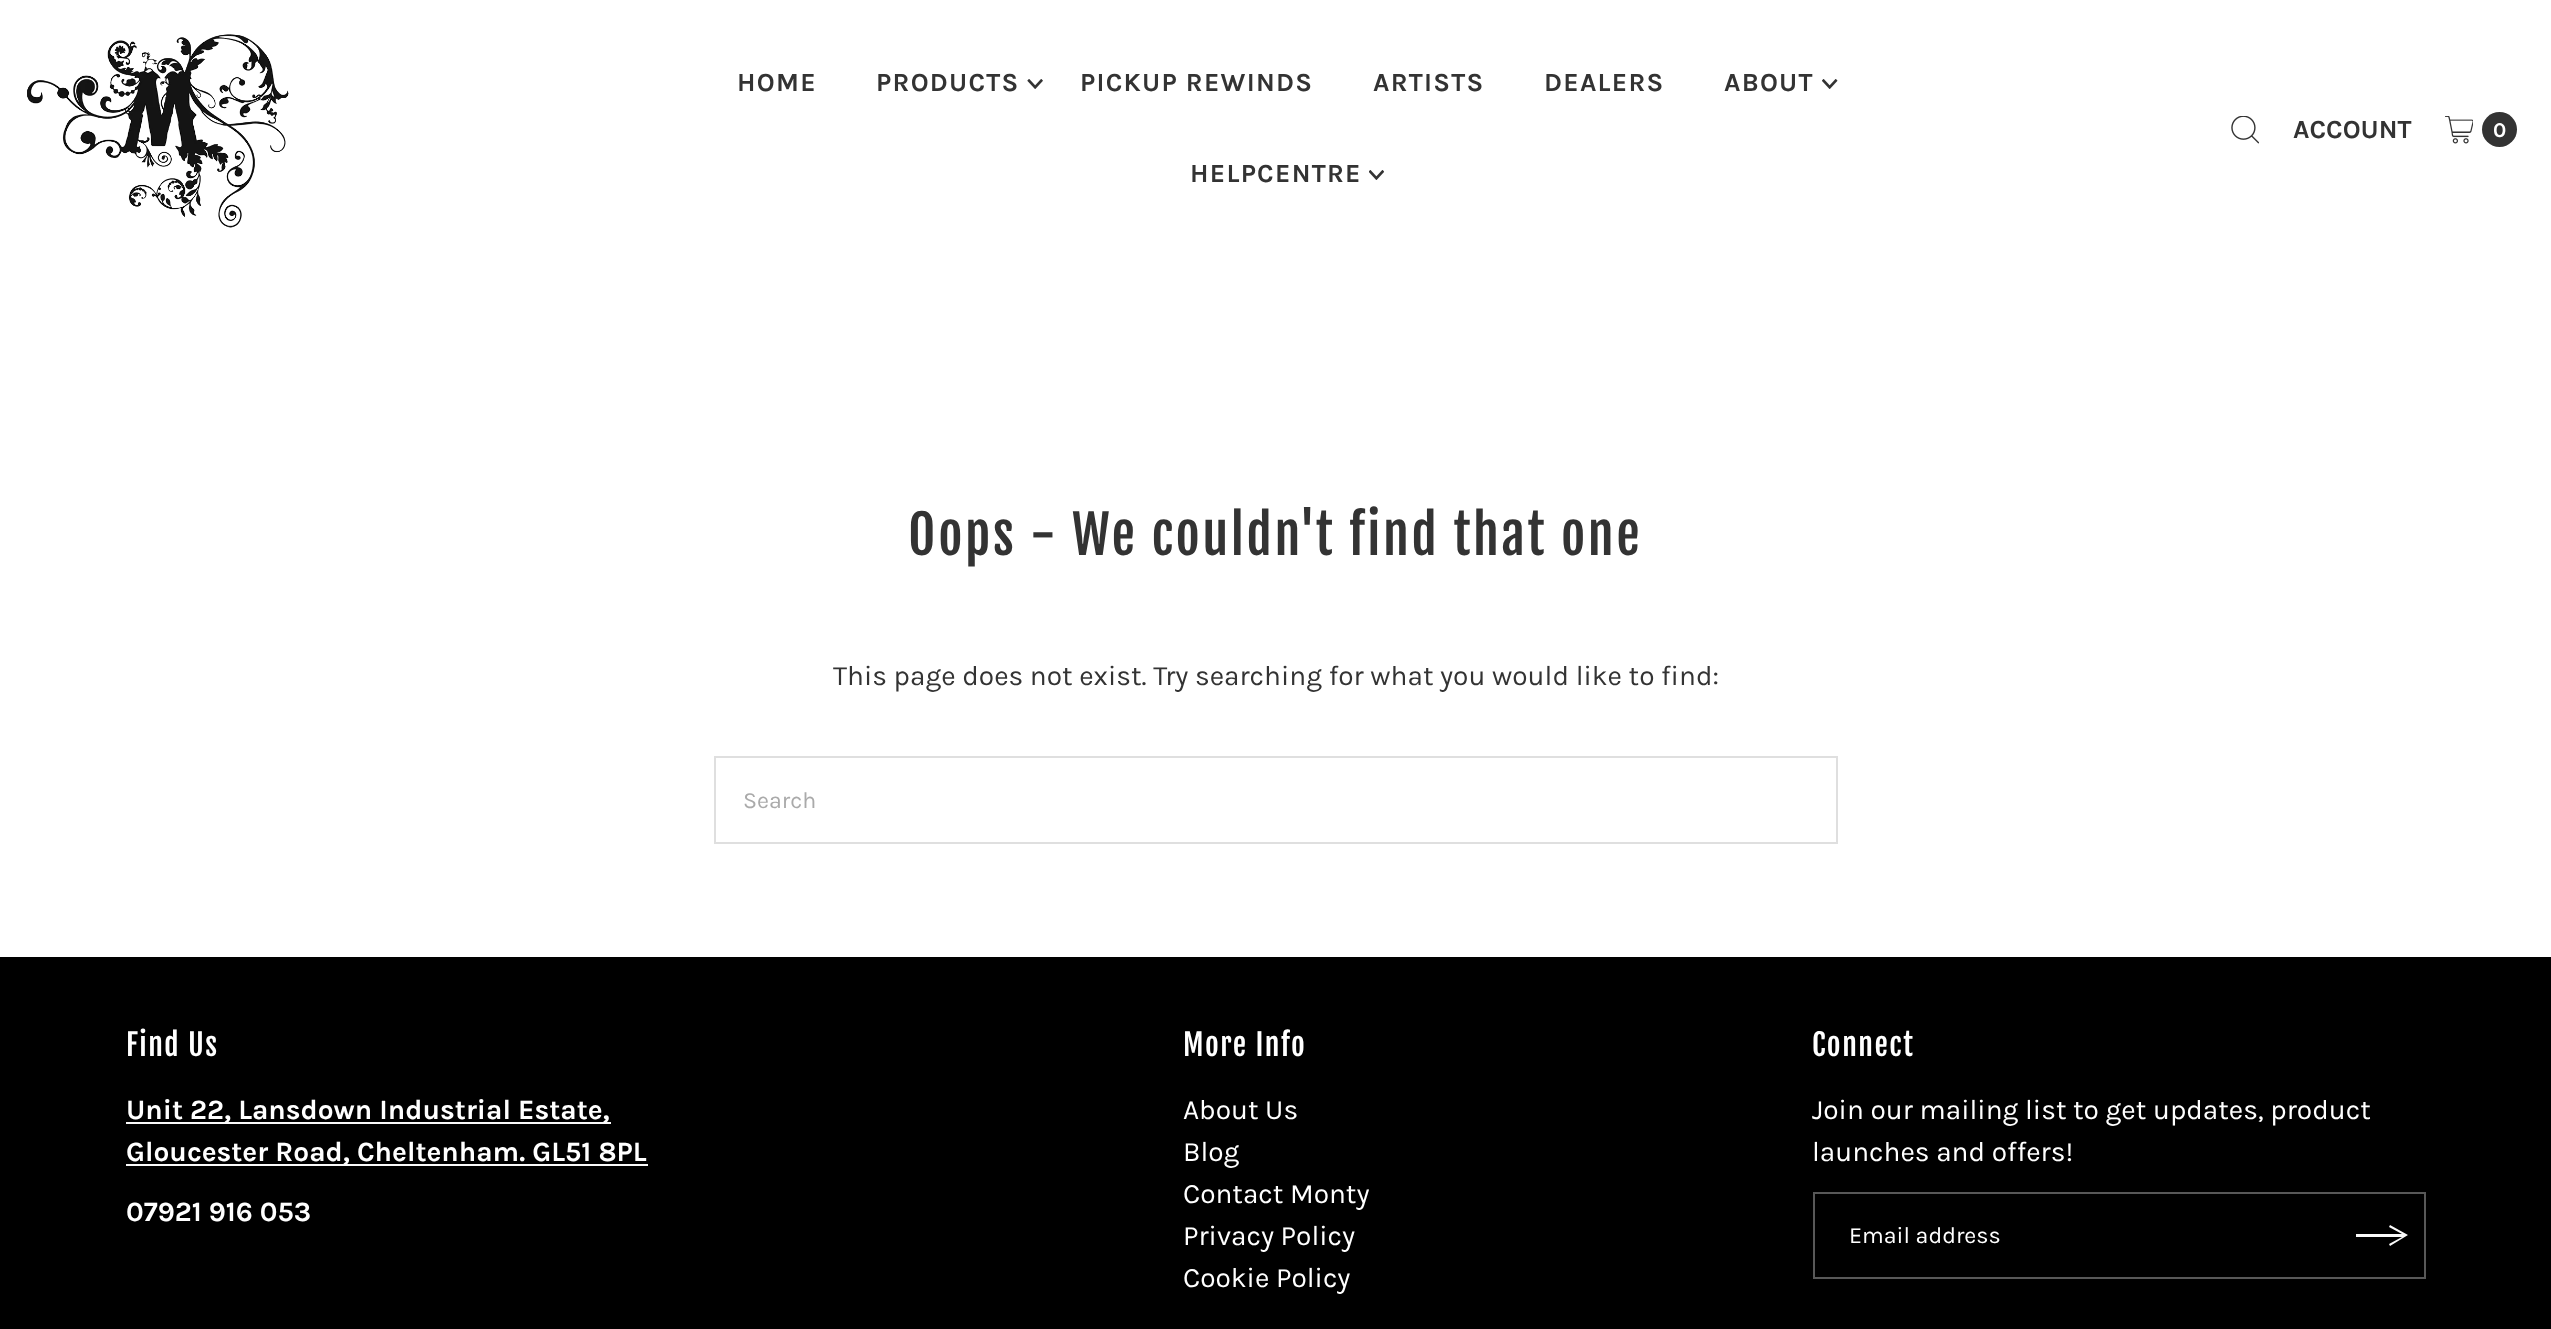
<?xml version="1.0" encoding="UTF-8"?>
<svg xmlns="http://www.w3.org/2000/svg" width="2551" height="1329">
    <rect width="100%" height="100%" fill="#FFFFFF"/>
    <image x="27" y="34" width="262" height="194" href="img_01.png"/>
    <text x="737" y="91" font-family="Karla" font-size="26.25" font-weight="700" letter-spacing="1.25" fill="#333333">HOME</text>
    <text x="876" y="91" font-family="Karla" font-size="26.25" font-weight="700" letter-spacing="1.25" fill="#333333">PRODUCTS</text>
    <image x="1027" y="79" width="16" height="10" href="img_02.png"/>
    <text x="1080" y="91" font-family="Karla" font-size="26.25" font-weight="700" letter-spacing="1.25" fill="#333333">PICKUP REWINDS</text>
    <text x="1373" y="91" font-family="Karla" font-size="26.25" font-weight="700" letter-spacing="1.25" fill="#333333">ARTISTS</text>
    <text x="1544" y="91" font-family="Karla" font-size="26.25" font-weight="700" letter-spacing="1.25" fill="#333333">DEALERS</text>
    <text x="1724" y="91" font-family="Karla" font-size="26.25" font-weight="700" letter-spacing="1.25" fill="#333333">ABOUT</text>
    <image x="1822" y="79" width="16" height="10" href="img_03.png"/>
    <text x="1190" y="182" font-family="Karla" font-size="26.25" font-weight="700" letter-spacing="1.25" fill="#333333">HELPCENTRE</text>
    <image x="1369" y="170" width="15" height="10" href="img_04.png"/>
    <image x="2231" y="116" width="28" height="28" href="img_05.png"/>
    <text x="2293" y="138" font-family="Karla" font-size="26.25" font-weight="700" fill="#333333">ACCOUNT</text>
    <image x="2445" y="116" width="28" height="28" href="img_06.png"/>
    <circle cx="2499.5" cy="129.5" r="17.5" fill="#333333"/>
    <text x="2493" y="137" font-family="Karla" font-size="21" font-weight="700" fill="#FFFFFF">0</text>
    <text x="908" y="555" font-family="Fjalla One" font-size="52.5" letter-spacing="2.6" fill="#333333">Oops - We couldn't find that one</text>
    <text x="833" y="685" font-family="Karla" font-size="28" fill="#333333">This page does not exist. Try searching for what you would like to find:</text>
    <rect x="715" y="757" width="1122" height="86" fill="none" stroke="#DFDFDF" stroke-width="2"/>
    <text x="743" y="808" font-family="Karla" font-size="23.25" fill="#AAAAAA">Search</text>
    <rect x="0" y="957" width="2551" height="372" fill="#000000"/>
    <text x="126" y="1056" font-family="Fjalla One" font-size="29.75" letter-spacing="1.5" fill="#FFFFFF">Find Us</text>
    <rect x="126" y="1122" width="485" height="2" fill="#FAFAFA"/>
    <text x="126" y="1119" font-family="Karla" font-size="28" font-weight="700" fill="#FFFFFF">Unit 22, Lansdown Industrial Estate,</text>
    <rect x="126" y="1164" width="522" height="2" fill="#FAFAFA"/>
    <text x="126" y="1161" font-family="Karla" font-size="28" font-weight="700" fill="#FFFFFF">Gloucester Road, Cheltenham. GL51 8PL</text>
    <text x="126" y="1221" font-family="Karla" font-size="28" font-weight="700" fill="#FFFFFF">07921 916 053</text>
    <text x="1183" y="1056" font-family="Fjalla One" font-size="29.75" letter-spacing="1.5" fill="#FFFFFF">More Info</text>
    <text font-family="Karla" font-size="28" fill="#FFFFFF">
        <tspan x="1183" y="1119">About Us</tspan>
        <tspan x="1183" y="1161">Blog</tspan>
        <tspan x="1183" y="1203">Contact Monty</tspan>
        <tspan x="1183" y="1245">Privacy Policy</tspan>
        <tspan x="1183" y="1287">Cookie Policy</tspan>
    </text>
    <text x="1812" y="1056" font-family="Fjalla One" font-size="29.75" letter-spacing="1.5" fill="#FFFFFF">Connect</text>
    <text font-family="Karla" font-size="28" fill="#FFFFFF">
        <tspan x="1812" y="1119">Join our mailing list to get updates, product</tspan>
        <tspan x="1812" y="1161">launches and offers!</tspan>
    </text>
    <rect x="1814" y="1193" width="611" height="85" fill="none" stroke="#585858" stroke-width="2"/>
    <text x="1849" y="1243" font-family="Karla" font-size="23.25" fill="#FFFFFF">Email address</text>
    <path d="M 2390 1225 L 2408 1235 L 2390 1246 L 2389 1244 L 2402 1237 H 2356 V 1234 H 2402 L 2389 1227 Z" fill="#FAFAFA"/>
</svg>
